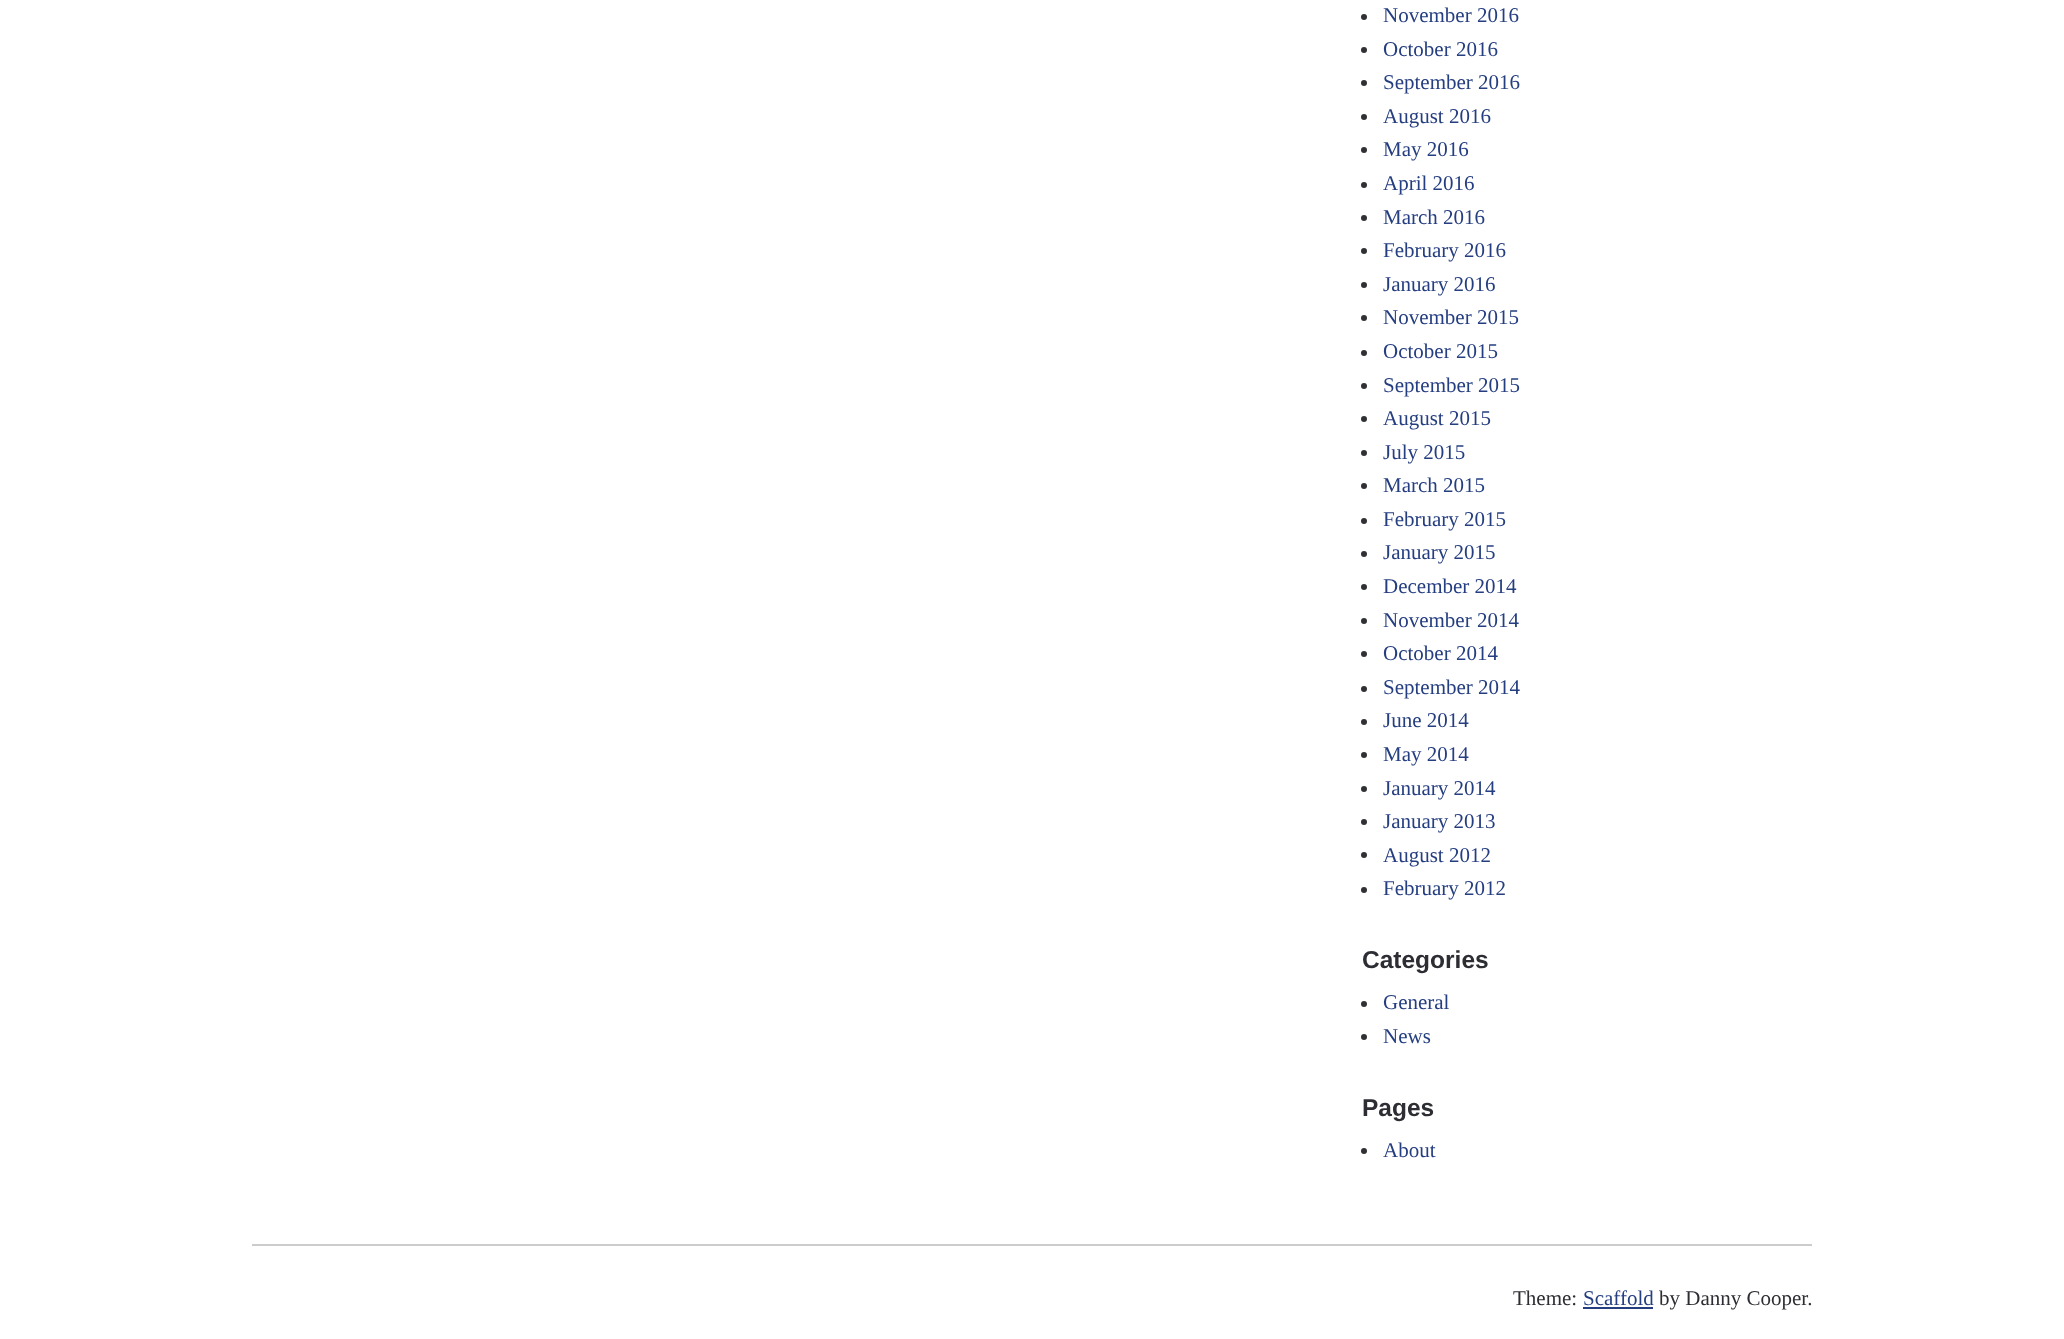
<?xml version="1.0" encoding="UTF-8"?>
<svg xmlns="http://www.w3.org/2000/svg" width="2064" height="1339">
    <rect width="100%" height="100%" fill="#FFFFFF"/>
    <circle cx="1364" cy="17" r="3" fill="#303135"/>
    <text x="1383" y="22" font-family="Liberation Serif" font-size="21" fill="#253E80">November 2016</text>
    <circle cx="1364" cy="50" r="3" fill="#303135"/>
    <text x="1383" y="56" font-family="Liberation Serif" font-size="21" fill="#253E80">October 2016</text>
    <circle cx="1364" cy="83" r="3" fill="#303135"/>
    <text x="1383" y="89" font-family="Liberation Serif" font-size="21" fill="#253E80">September 2016</text>
    <circle cx="1364" cy="117" r="3" fill="#303135"/>
    <text x="1383" y="123" font-family="Liberation Serif" font-size="21" fill="#253E80">August 2016</text>
    <circle cx="1364" cy="150" r="3" fill="#303135"/>
    <text x="1383" y="156" font-family="Liberation Serif" font-size="21" fill="#253E80">May 2016</text>
    <circle cx="1364" cy="185" r="3" fill="#303135"/>
    <text x="1383" y="190" font-family="Liberation Serif" font-size="21" fill="#253E80">April 2016</text>
    <circle cx="1364" cy="218" r="3" fill="#303135"/>
    <text x="1383" y="224" font-family="Liberation Serif" font-size="21" fill="#253E80">March 2016</text>
    <circle cx="1364" cy="251" r="3" fill="#303135"/>
    <text x="1383" y="257" font-family="Liberation Serif" font-size="21" fill="#253E80">February 2016</text>
    <circle cx="1364" cy="285" r="3" fill="#303135"/>
    <text x="1383" y="291" font-family="Liberation Serif" font-size="21" fill="#253E80">January 2016</text>
    <circle cx="1364" cy="318" r="3" fill="#303135"/>
    <text x="1383" y="324" font-family="Liberation Serif" font-size="21" fill="#253E80">November 2015</text>
    <circle cx="1364" cy="353" r="3" fill="#303135"/>
    <text x="1383" y="358" font-family="Liberation Serif" font-size="21" fill="#253E80">October 2015</text>
    <circle cx="1364" cy="386" r="3" fill="#303135"/>
    <text x="1383" y="392" font-family="Liberation Serif" font-size="21" fill="#253E80">September 2015</text>
    <circle cx="1364" cy="419" r="3" fill="#303135"/>
    <text x="1383" y="425" font-family="Liberation Serif" font-size="21" fill="#253E80">August 2015</text>
    <circle cx="1364" cy="453" r="3" fill="#303135"/>
    <text x="1383" y="459" font-family="Liberation Serif" font-size="21" fill="#253E80">July 2015</text>
    <circle cx="1364" cy="486" r="3" fill="#303135"/>
    <text x="1383" y="492" font-family="Liberation Serif" font-size="21" fill="#253E80">March 2015</text>
    <circle cx="1364" cy="521" r="3" fill="#303135"/>
    <text x="1383" y="526" font-family="Liberation Serif" font-size="21" fill="#253E80">February 2015</text>
    <circle cx="1364" cy="554" r="3" fill="#303135"/>
    <text x="1383" y="559" font-family="Liberation Serif" font-size="21" fill="#253E80">January 2015</text>
    <circle cx="1364" cy="587" r="3" fill="#303135"/>
    <text x="1383" y="593" font-family="Liberation Serif" font-size="21" fill="#253E80">December 2014</text>
    <circle cx="1364" cy="621" r="3" fill="#303135"/>
    <text x="1383" y="627" font-family="Liberation Serif" font-size="21" fill="#253E80">November 2014</text>
    <circle cx="1364" cy="654" r="3" fill="#303135"/>
    <text x="1383" y="660" font-family="Liberation Serif" font-size="21" fill="#253E80">October 2014</text>
    <circle cx="1364" cy="689" r="3" fill="#303135"/>
    <text x="1383" y="694" font-family="Liberation Serif" font-size="21" fill="#253E80">September 2014</text>
    <circle cx="1364" cy="722" r="3" fill="#303135"/>
    <text x="1383" y="727" font-family="Liberation Serif" font-size="21" fill="#253E80">June 2014</text>
    <circle cx="1364" cy="755" r="3" fill="#303135"/>
    <text x="1383" y="761" font-family="Liberation Serif" font-size="21" fill="#253E80">May 2014</text>
    <circle cx="1364" cy="789" r="3" fill="#303135"/>
    <text x="1383" y="795" font-family="Liberation Serif" font-size="21" fill="#253E80">January 2014</text>
    <circle cx="1364" cy="822" r="3" fill="#303135"/>
    <text x="1383" y="828" font-family="Liberation Serif" font-size="21" fill="#253E80">January 2013</text>
    <circle cx="1364" cy="855" r="3" fill="#303135"/>
    <text x="1383" y="862" font-family="Liberation Serif" font-size="21" fill="#253E80">August 2012</text>
    <circle cx="1364" cy="890" r="3" fill="#303135"/>
    <text x="1383" y="895" font-family="Liberation Serif" font-size="21" fill="#253E80">February 2012</text>
    <text x="1362" y="968" font-family="Liberation Sans" font-size="24.5" font-weight="700" fill="#2D2E33">Categories</text>
    <circle cx="1364" cy="1004" r="3" fill="#303135"/>
    <text x="1383" y="1009" font-family="Liberation Serif" font-size="21" fill="#253E80">General</text>
    <circle cx="1364" cy="1037" r="3" fill="#303135"/>
    <text x="1383" y="1043" font-family="Liberation Serif" font-size="21" fill="#253E80">News</text>
    <text x="1362" y="1116" font-family="Liberation Sans" font-size="24.5" font-weight="700" fill="#2D2E33">Pages</text>
    <circle cx="1364" cy="1151" r="3" fill="#303135"/>
    <text x="1383" y="1157" font-family="Liberation Serif" font-size="21" fill="#253E80">About</text>
    <rect x="252" y="1244" width="1560" height="2" fill="#CCCCCC"/>
    <text x="1513" y="1305" font-family="Liberation Serif" font-size="21" fill="#2D2E33">Theme:</text>
    <text x="1583" y="1305" font-family="Liberation Serif" font-size="21" fill="#253E80">Scaffold</text>
    <rect x="1583" y="1307" width="70" height="2" fill="#253E80"/>
    <text x="1659" y="1305" font-family="Liberation Serif" font-size="21" fill="#2D2E33">by Danny Cooper.</text>
</svg>
